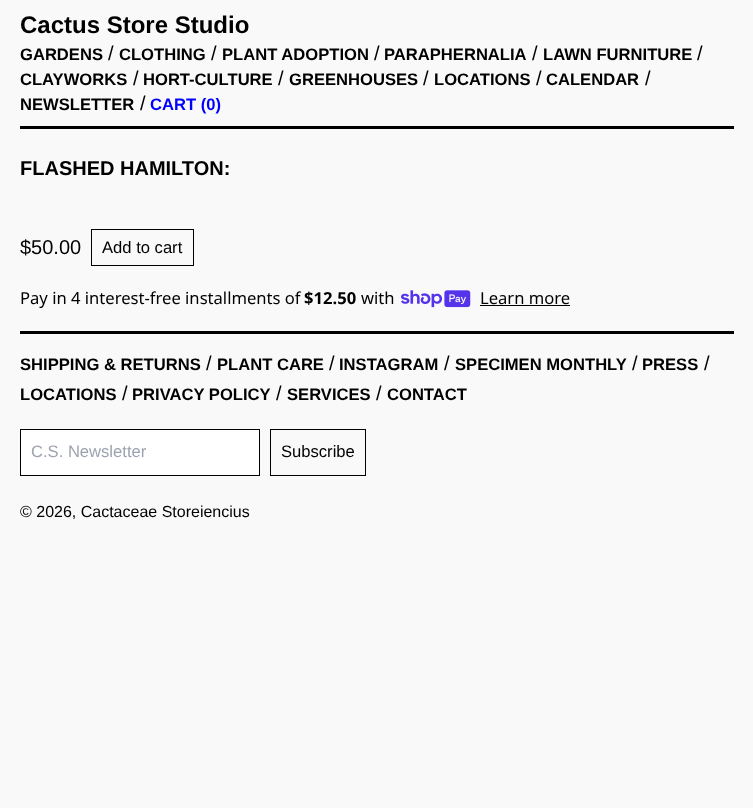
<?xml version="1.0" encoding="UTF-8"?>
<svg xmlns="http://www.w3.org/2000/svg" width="753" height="808">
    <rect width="100%" height="100%" fill="#F9F9F9"/>
    <text x="20" y="33" font-family="Liberation Sans" font-size="24" font-weight="700" fill="#000000">Cactus Store Studio</text>
    <text x="20" y="60" font-family="Liberation Sans" font-size="16.6" font-weight="700" fill="#000000">GARDENS</text>
    <text x="108" y="60" font-family="Liberation Sans" font-size="20" fill="#000000">/</text>
    <text x="119" y="60" font-family="Liberation Sans" font-size="16.6" font-weight="700" fill="#000000">CLOTHING</text>
    <text x="211" y="60" font-family="Liberation Sans" font-size="20" fill="#000000">/</text>
    <text x="222" y="60" font-family="Liberation Sans" font-size="16.6" font-weight="700" fill="#000000">PLANT ADOPTION</text>
    <text x="374" y="60" font-family="Liberation Sans" font-size="20" fill="#000000">/</text>
    <text x="384" y="60" font-family="Liberation Sans" font-size="16.6" font-weight="700" fill="#000000">PARAPHERNALIA</text>
    <text x="532" y="60" font-family="Liberation Sans" font-size="20" fill="#000000">/</text>
    <text x="543" y="60" font-family="Liberation Sans" font-size="16.6" font-weight="700" fill="#000000">LAWN FURNITURE</text>
    <text x="697" y="60" font-family="Liberation Sans" font-size="20" fill="#000000">/</text>
    <text x="20" y="85" font-family="Liberation Sans" font-size="16.6" font-weight="700" fill="#000000">CLAYWORKS</text>
    <text x="133" y="85" font-family="Liberation Sans" font-size="20" fill="#000000">/</text>
    <text x="143" y="85" font-family="Liberation Sans" font-size="16.6" font-weight="700" fill="#000000">HORT-CULTURE</text>
    <text x="278" y="85" font-family="Liberation Sans" font-size="20" fill="#000000">/</text>
    <text x="289" y="85" font-family="Liberation Sans" font-size="16.6" font-weight="700" fill="#000000">GREENHOUSES</text>
    <text x="423" y="85" font-family="Liberation Sans" font-size="20" fill="#000000">/</text>
    <text x="434" y="85" font-family="Liberation Sans" font-size="16.6" font-weight="700" fill="#000000">LOCATIONS</text>
    <text x="536" y="85" font-family="Liberation Sans" font-size="20" fill="#000000">/</text>
    <text x="546" y="85" font-family="Liberation Sans" font-size="16.6" font-weight="700" fill="#000000">CALENDAR</text>
    <text x="645" y="85" font-family="Liberation Sans" font-size="20" fill="#000000">/</text>
    <text x="20" y="110" font-family="Liberation Sans" font-size="16.6" font-weight="700" fill="#000000">NEWSLETTER</text>
    <text x="140" y="110" font-family="Liberation Sans" font-size="20" fill="#000000">/</text>
    <text x="150" y="110" font-family="Liberation Sans" font-size="16.6" font-weight="700" fill="#0000FF">CART (0)</text>
    <rect x="20" y="126" width="714" height="3" fill="#000000"/>
    <text x="20" y="175" font-family="Liberation Sans" font-size="20" font-weight="700" fill="#000000">FLASHED HAMILTON:</text>
    <text x="20" y="254" font-family="Liberation Sans" font-size="20" fill="#000000">$50.00</text>
    <rect x="91.5" y="229.5" width="102" height="36" fill="none" stroke="#000000"/>
    <text x="102" y="253" font-family="Liberation Sans" font-size="16.6" fill="#000000">Add to cart</text>
    <text x="20" y="304" font-family="Noto Sans" font-size="16.6" fill="#000000">Pay in 4 interest-free installments of</text>
    <text x="304" y="304" font-family="Noto Sans" font-size="16.6" font-weight="700" fill="#000000">$12.50</text>
    <text x="361" y="304" font-family="Noto Sans" font-size="16.6" fill="#000000">with</text>
    <image x="401" y="290" width="70" height="18" href="img_01.png"/>
    <text x="480" y="304" font-family="Noto Sans" font-size="16.6" fill="#000000">Learn more</text>
    <rect x="480" y="305" width="90" height="1" fill="#000000"/>
    <rect x="20" y="331" width="714" height="3" fill="#000000"/>
    <text x="20" y="370" font-family="Liberation Sans" font-size="16.6" font-weight="700" fill="#000000">SHIPPING &amp; RETURNS</text>
    <text x="206" y="370" font-family="Liberation Sans" font-size="20" fill="#000000">/</text>
    <text x="217" y="370" font-family="Liberation Sans" font-size="16.6" font-weight="700" fill="#000000">PLANT CARE</text>
    <text x="329" y="370" font-family="Liberation Sans" font-size="20" fill="#000000">/</text>
    <text x="339" y="370" font-family="Liberation Sans" font-size="16.6" font-weight="700" fill="#000000">INSTAGRAM</text>
    <text x="444" y="370" font-family="Liberation Sans" font-size="20" fill="#000000">/</text>
    <text x="455" y="370" font-family="Liberation Sans" font-size="16.6" font-weight="700" fill="#000000">SPECIMEN MONTHLY</text>
    <text x="632" y="370" font-family="Liberation Sans" font-size="20" fill="#000000">/</text>
    <text x="642" y="370" font-family="Liberation Sans" font-size="16.6" font-weight="700" fill="#000000">PRESS</text>
    <text x="704" y="370" font-family="Liberation Sans" font-size="20" fill="#000000">/</text>
    <text x="20" y="400" font-family="Liberation Sans" font-size="16.6" font-weight="700" fill="#000000">LOCATIONS</text>
    <text x="122" y="400" font-family="Liberation Sans" font-size="20" fill="#000000">/</text>
    <text x="132" y="400" font-family="Liberation Sans" font-size="16.6" font-weight="700" fill="#000000">PRIVACY POLICY</text>
    <text x="276" y="400" font-family="Liberation Sans" font-size="20" fill="#000000">/</text>
    <text x="287" y="400" font-family="Liberation Sans" font-size="16.6" font-weight="700" fill="#000000">SERVICES</text>
    <text x="376" y="400" font-family="Liberation Sans" font-size="20" fill="#000000">/</text>
    <text x="387" y="400" font-family="Liberation Sans" font-size="16.6" font-weight="700" fill="#000000">CONTACT</text>
    <rect x="20.5" y="429.5" width="239" height="46" fill="#FFFFFF" stroke="#000000"/>
    <text x="31" y="457" font-family="Liberation Sans" font-size="16.6" fill="#9CA3AF">C.S. Newsletter</text>
    <rect x="270.5" y="429.5" width="95" height="46" fill="none" stroke="#000000"/>
    <text x="281" y="457" font-family="Liberation Sans" font-size="16.6" fill="#000000">Subscribe</text>
    <text x="20" y="517" font-family="Liberation Sans" font-size="16" fill="#000000">© 2026, Cactaceae Storeiencius</text>
</svg>
